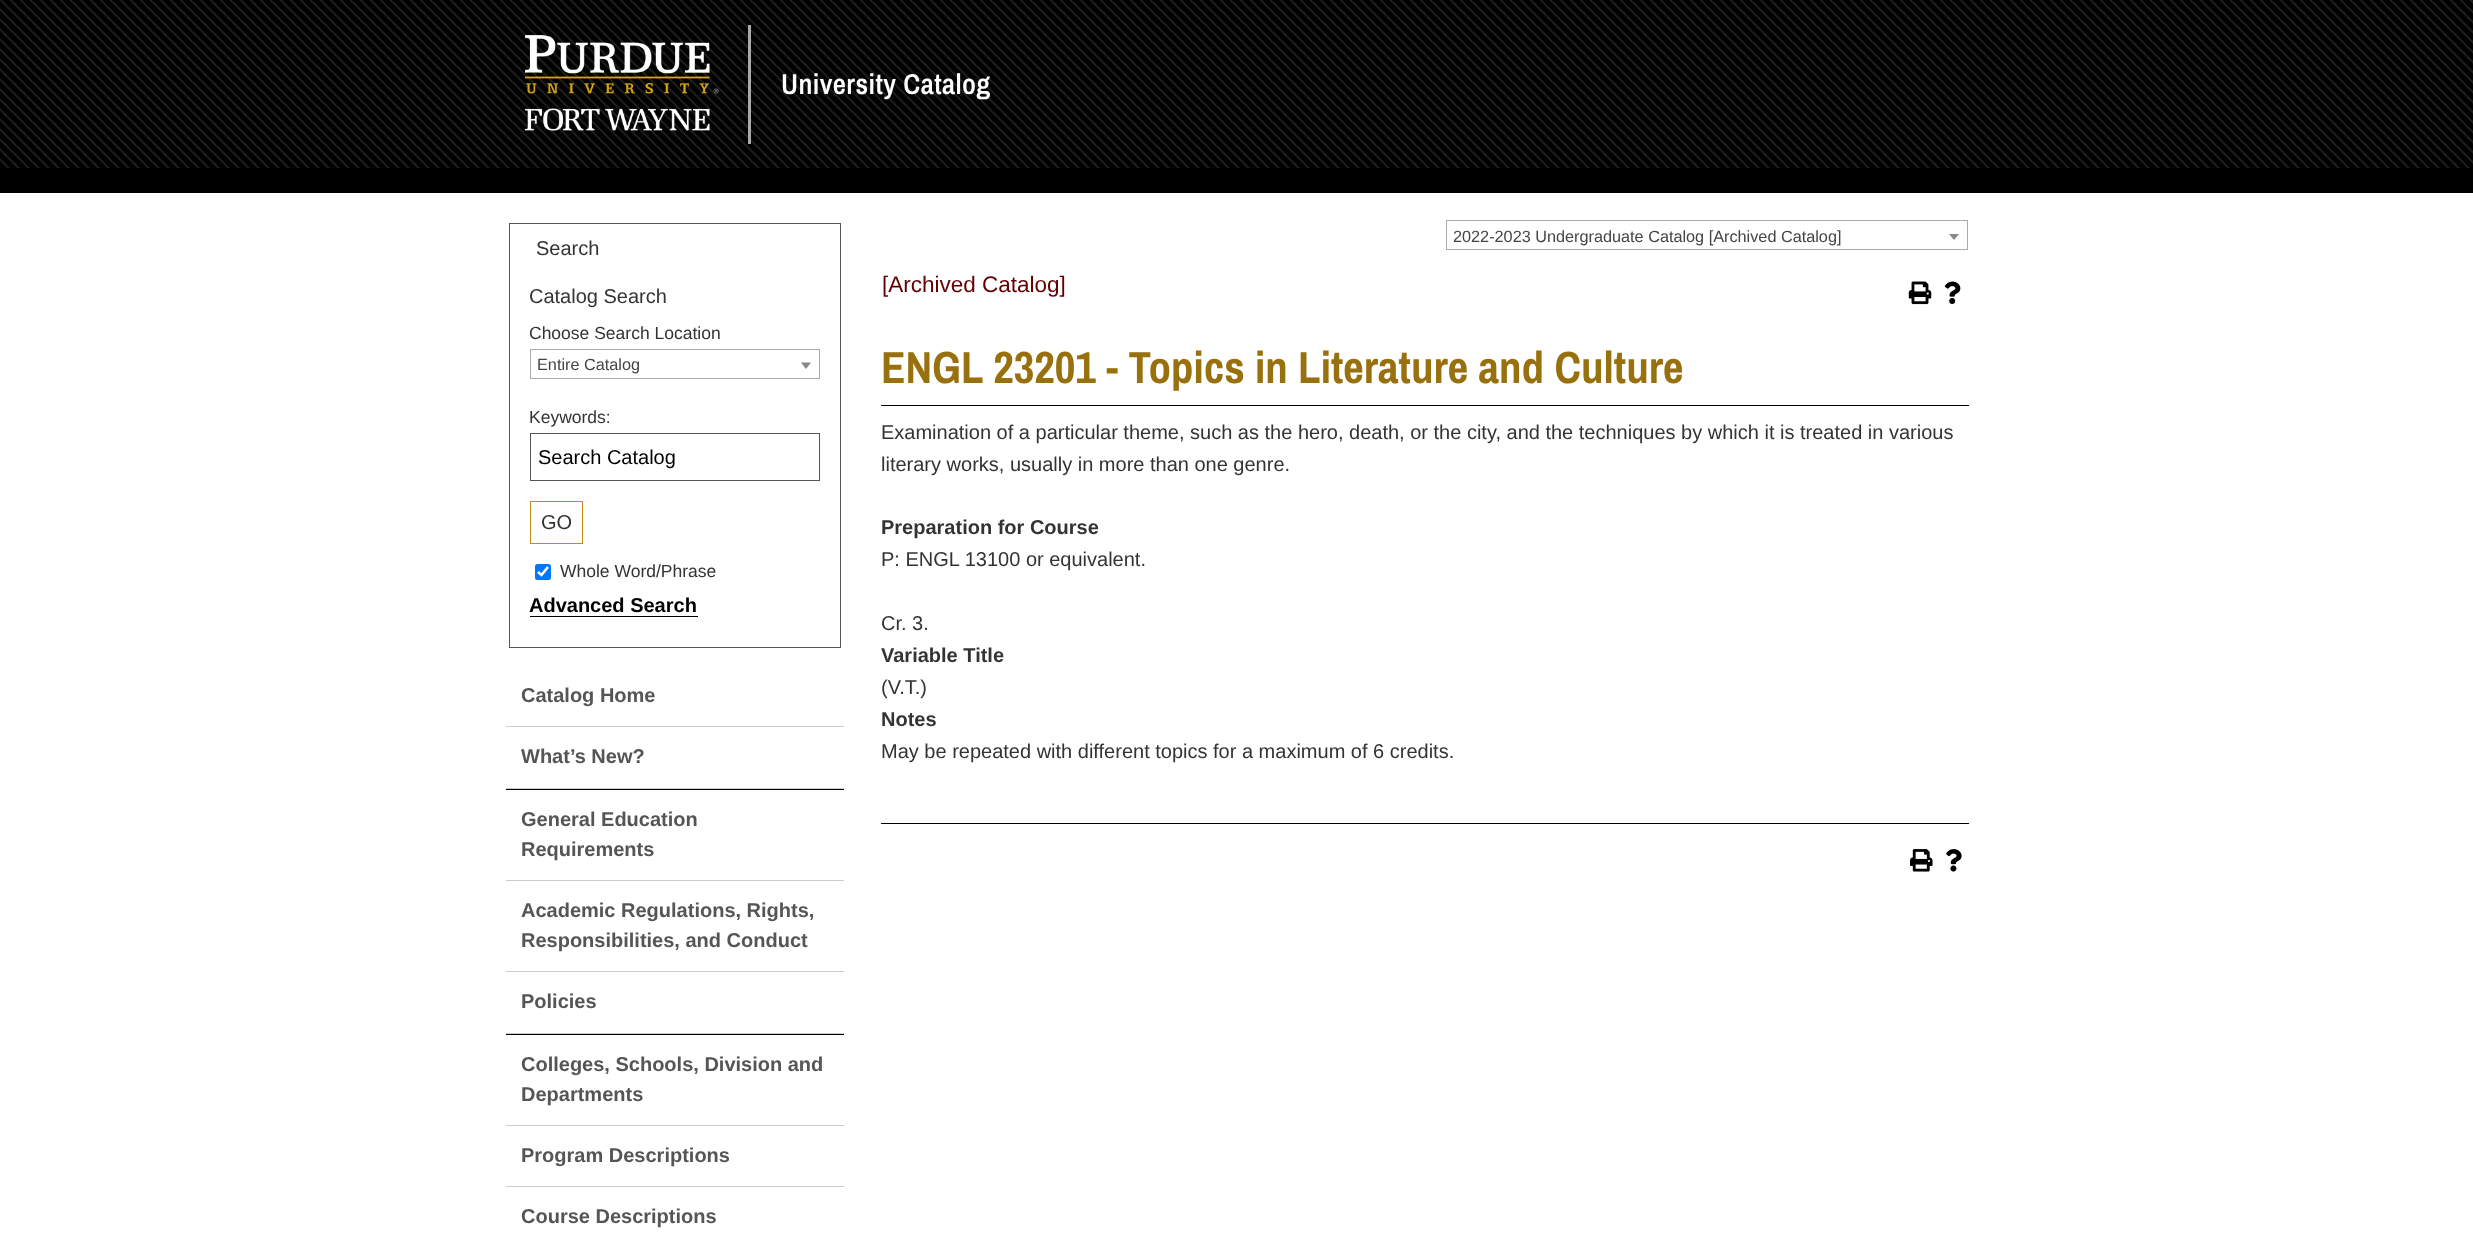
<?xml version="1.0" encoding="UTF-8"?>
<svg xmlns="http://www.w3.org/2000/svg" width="2473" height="1234">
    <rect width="100%" height="100%" fill="#FFFFFF"/>
    <rect x="0" y="0" width="2473" height="193" fill="#000000"/>
    <image x="0" y="0" width="2473" height="168" href="img_01.png"/>
    <image x="525" y="35" width="194" height="96" href="img_02.png"/>
    <rect x="748" y="25" width="3" height="119" fill="#AAAAAA"/>
    <text x="781" y="94" font-family="Archivo Narrow" font-size="28.75" font-weight="600" letter-spacing="0.4" fill="#FFFFFF">University Catalog</text>
    <rect x="1446.5" y="220.5" width="521" height="29" fill="none" stroke="#AAAAAA"/>
    <text x="1453" y="242" font-family="Liberation Sans" font-size="16.25" fill="#444444">2022-2023 Undergraduate Catalog [Archived Catalog]</text>
    <path d="M 1949 234 H 1959 L 1954 240 Z" fill="#888888"/>
    <rect x="509.5" y="223.5" width="331" height="424" fill="none" stroke="#555555"/>
    <text x="536" y="255" font-family="Liberation Sans" font-size="20" fill="#333333">Search</text>
    <text x="529" y="303" font-family="Liberation Sans" font-size="20" fill="#333333">Catalog Search</text>
    <text x="529" y="339" font-family="Liberation Sans" font-size="17.5" fill="#333333">Choose Search Location</text>
    <rect x="530.5" y="349.5" width="289" height="29" fill="none" stroke="#AAAAAA"/>
    <text x="537" y="370" font-family="Liberation Sans" font-size="16.25" fill="#444444">Entire Catalog</text>
    <path d="M 801 362.5 H 811 L 806 369 Z" fill="#888888"/>
    <text x="529" y="423" font-family="Liberation Sans" font-size="17.5" fill="#333333">Keywords:</text>
    <rect x="530.5" y="433.5" width="289" height="47" fill="none" stroke="#555555"/>
    <text x="538" y="464" font-family="Liberation Sans" font-size="20" fill="#000000">Search Catalog</text>
    <rect x="530.5" y="501.5" width="52" height="42" fill="none" stroke="#C28E0E"/>
    <text x="541" y="529" font-family="Liberation Sans" font-size="20" fill="#333333">GO</text>
    <rect x="535" y="564" width="16" height="16" rx="2.5" fill="#0075FF"/>
    <path d="M 538 572 L 541.5 575 L 548 567" fill="none" stroke="#FFFFFF" stroke-width="2.6"/>
    <text x="560" y="577" font-family="Liberation Sans" font-size="17.5" fill="#333333">Whole Word/Phrase</text>
    <text x="529" y="612" font-family="Liberation Sans" font-size="20" font-weight="700" fill="#000000">Advanced Search</text>
    <rect x="530" y="616" width="168" height="1" fill="#000000"/>
    <rect x="506" y="726" width="338" height="1" fill="#CCCCCC"/>
    <text x="521" y="702" font-family="Liberation Sans" font-size="20" font-weight="700" fill="#555555">Catalog Home</text>
    <rect x="506" y="788" width="338" height="1" fill="#CCCCCC"/>
    <text x="521" y="763" font-family="Liberation Sans" font-size="20" font-weight="700" fill="#555555">What’s New?</text>
    <rect x="506" y="789" width="338" height="1" fill="#000000"/>
    <rect x="506" y="880" width="338" height="1" fill="#CCCCCC"/>
    <text font-family="Liberation Sans" font-size="20" font-weight="700" fill="#555555">
        <tspan x="521" y="826">General Education</tspan>
        <tspan x="521" y="856">Requirements</tspan>
    </text>
    <rect x="506" y="971" width="338" height="1" fill="#CCCCCC"/>
    <text font-family="Liberation Sans" font-size="20" font-weight="700" fill="#555555">
        <tspan x="521" y="917">Academic Regulations, Rights,</tspan>
        <tspan x="521" y="947">Responsibilities, and Conduct</tspan>
    </text>
    <rect x="506" y="1033" width="338" height="1" fill="#CCCCCC"/>
    <text x="521" y="1008" font-family="Liberation Sans" font-size="20" font-weight="700" fill="#555555">Policies</text>
    <rect x="506" y="1034" width="338" height="1" fill="#000000"/>
    <rect x="506" y="1125" width="338" height="1" fill="#CCCCCC"/>
    <text font-family="Liberation Sans" font-size="20" font-weight="700" fill="#555555">
        <tspan x="521" y="1071">Colleges, Schools, Division and</tspan>
        <tspan x="521" y="1101">Departments</tspan>
    </text>
    <rect x="506" y="1186" width="338" height="1" fill="#CCCCCC"/>
    <text x="521" y="1162" font-family="Liberation Sans" font-size="20" font-weight="700" fill="#555555">Program Descriptions</text>
    <text x="521" y="1223" font-family="Liberation Sans" font-size="20" font-weight="700" fill="#555555">Course Descriptions</text>
    <text x="882" y="292" font-family="Liberation Sans" font-size="22.5" fill="#660000">[Archived Catalog]</text>
    <image x="1908" y="281" width="24" height="24" href="img_03.png"/>
    <image x="1944" y="281" width="17" height="23" href="img_04.png"/>
    <text x="881" y="383" font-family="Archivo Narrow" font-size="45" font-weight="700" fill="#98700D">ENGL 23201 - Topics in Literature and Culture</text>
    <rect x="881" y="405" width="1088" height="1" fill="#000000"/>
    <text font-family="Liberation Sans" font-size="20" fill="#333333">
        <tspan x="881" y="439">Examination of a particular theme, such as the hero, death, or the city, and the techniques by which it is treated in various</tspan>
        <tspan x="881" y="471">literary works, usually in more than one genre.</tspan>
    </text>
    <text x="881" y="534" font-family="Liberation Sans" font-size="20" font-weight="700" fill="#333333">Preparation for Course</text>
    <text x="881" y="566" font-family="Liberation Sans" font-size="20" fill="#333333">P: ENGL 13100 or equivalent.</text>
    <text x="881" y="630" font-family="Liberation Sans" font-size="20" fill="#333333">Cr. 3.</text>
    <text x="881" y="662" font-family="Liberation Sans" font-size="20" font-weight="700" fill="#333333">Variable Title</text>
    <text x="881" y="694" font-family="Liberation Sans" font-size="20" fill="#333333">(V.T.)</text>
    <text x="881" y="726" font-family="Liberation Sans" font-size="20" font-weight="700" fill="#333333">Notes</text>
    <text x="881" y="758" font-family="Liberation Sans" font-size="20" fill="#333333">May be repeated with different topics for a maximum of 6 credits.</text>
    <rect x="881" y="823" width="1088" height="1" fill="#000000"/>
    <image x="1910" y="849" width="23" height="23" href="img_05.png"/>
    <image x="1946" y="849" width="16" height="23" href="img_06.png"/>
</svg>
